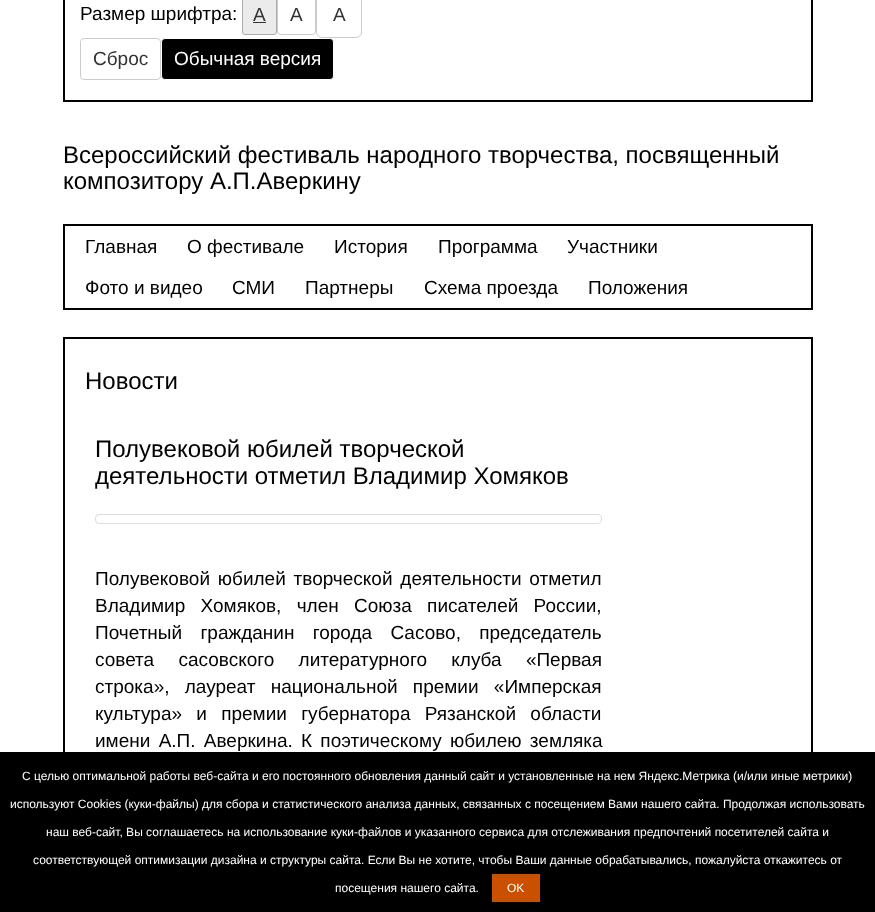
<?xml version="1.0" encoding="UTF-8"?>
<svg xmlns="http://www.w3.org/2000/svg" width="875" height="912">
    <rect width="100%" height="100%" fill="#FFFFFF"/>
    <rect x="64" y="-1" width="748" height="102" fill="none" stroke="#000000" stroke-width="2"/>
    <text x="80" y="20" font-family="Liberation Sans" font-size="19" fill="#000000">Размер шрифтра:</text>
    <rect x="242.5" y="-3.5" width="34" height="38" rx="2.5" fill="#EBEBEB" stroke="#ADADAD"/>
    <text x="253" y="21" font-family="Liberation Sans" font-size="19" fill="#333333">А</text>
    <rect x="253" y="22" width="13" height="1" fill="#333333"/>
    <rect x="277.5" y="-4.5" width="38" height="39" rx="3.5" fill="none" stroke="#CCCCCC"/>
    <text x="290" y="21" font-family="Liberation Sans" font-size="19" fill="#333333">А</text>
    <rect x="316.5" y="-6.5" width="45" height="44" rx="5.5" fill="none" stroke="#CCCCCC"/>
    <text x="333" y="21" font-family="Liberation Sans" font-size="19" fill="#333333">А</text>
    <rect x="80.5" y="38.5" width="80" height="41" rx="3.5" fill="none" stroke="#CCCCCC"/>
    <text x="93" y="65" font-family="Liberation Sans" font-size="19" fill="#333333">Сброс</text>
    <rect x="161.5" y="38.5" width="172" height="41" rx="3.5" fill="#000000" stroke="#FFFFFF"/>
    <text x="174" y="65" font-family="Liberation Sans" font-size="19" fill="#FFFFFF">Обычная версия</text>
    <text font-family="Liberation Sans" font-size="24" fill="#000000">
        <tspan x="63" y="163">Всероссийский фестиваль народного творчества, посвященный</tspan>
        <tspan x="63" y="189">композитору А.П.Аверкину</tspan>
    </text>
    <rect x="64" y="225" width="748" height="84" fill="none" stroke="#000000" stroke-width="2"/>
    <text x="85" y="253" font-family="Liberation Sans" font-size="19" fill="#000000">Главная</text>
    <text x="187" y="253" font-family="Liberation Sans" font-size="19" fill="#000000">О фестивале</text>
    <text x="334" y="253" font-family="Liberation Sans" font-size="19" fill="#000000">История</text>
    <text x="438" y="253" font-family="Liberation Sans" font-size="19" fill="#000000">Программа</text>
    <text x="567" y="253" font-family="Liberation Sans" font-size="19" fill="#000000">Участники</text>
    <text x="85" y="294" font-family="Liberation Sans" font-size="19" fill="#000000">Фото и видео</text>
    <text x="232" y="294" font-family="Liberation Sans" font-size="19" fill="#000000">СМИ</text>
    <text x="305" y="294" font-family="Liberation Sans" font-size="19" fill="#000000">Партнеры</text>
    <text x="424" y="294" font-family="Liberation Sans" font-size="19" fill="#000000">Схема проезда</text>
    <text x="588" y="294" font-family="Liberation Sans" font-size="19" fill="#000000">Положения</text>
    <rect x="63" y="337" width="750" height="2" fill="#000000"/>
    <rect x="811" y="337" width="2" height="415" fill="#000000"/>
    <rect x="63" y="337" width="2" height="415" fill="#000000"/>
    <text x="85" y="389" font-family="Liberation Sans" font-size="24" fill="#000000">Новости</text>
    <text font-family="Liberation Sans" font-size="24" fill="#000000">
        <tspan x="95" y="457">Полувековой юбилей творческой</tspan>
        <tspan x="95" y="484">деятельности отметил Владимир Хомяков</tspan>
    </text>
    <rect x="95.5" y="514.5" width="506" height="9" rx="3.5" fill="none" stroke="#DDDDDD"/>
    <text font-family="Liberation Sans" font-size="19" fill="#000000">
        <tspan x="95" y="585" word-spacing="2.5">Полувековой юбилей творческой деятельности отметил</tspan>
        <tspan x="95" y="612" word-spacing="10">Владимир Хомяков, член Союза писателей России,</tspan>
        <tspan x="95" y="639" word-spacing="13">Почетный гражданин города Сасово, председатель</tspan>
        <tspan x="95" y="666" word-spacing="19">совета сасовского литературного клуба «Первая</tspan>
        <tspan x="95" y="693" word-spacing="10">строка», лауреат национальной премии «Имперская</tspan>
        <tspan x="95" y="720" word-spacing="9">культура» и премии губернатора Рязанской области</tspan>
        <tspan x="95" y="747" word-spacing="3">имени А.П. Аверкина. К поэтическому юбилею земляка</tspan>
    </text>
    <rect x="0" y="752" width="875" height="160" fill="#000000"/>
    <text x="22" y="780" font-family="Liberation Sans" font-size="12" fill="#FFFFFF">С целью оптимальной работы веб-сайта и его постоянного обновления данный сайт и установленные на нем Яндекс.Метрика (и/или иные метрики)</text>
    <text x="10" y="808" font-family="Liberation Sans" font-size="12" fill="#FFFFFF">используют Cookies (куки-файлы) для сбора и статистического анализа данных, связанных с посещением Вами нашего сайта. Продолжая использовать</text>
    <text x="46" y="836" font-family="Liberation Sans" font-size="12" fill="#FFFFFF">наш веб-сайт, Вы соглашаетесь на использование куки-файлов и указанного сервиса для отслеживания предпочтений посетителей сайта и</text>
    <text x="33" y="864" font-family="Liberation Sans" font-size="12" fill="#FFFFFF">соответствующей оптимизации дизайна и структуры сайта. Если Вы не хотите, чтобы Ваши данные обрабатывались, пожалуйста откажитесь от</text>
    <text x="335" y="892" font-family="Liberation Sans" font-size="12" fill="#FFFFFF">посещения нашего сайта.</text>
    <rect x="492" y="874" width="48" height="28" fill="#CA5000"/>
    <text x="507" y="892" font-family="Liberation Sans" font-size="12" fill="#FFFFFF">OK</text>
</svg>
